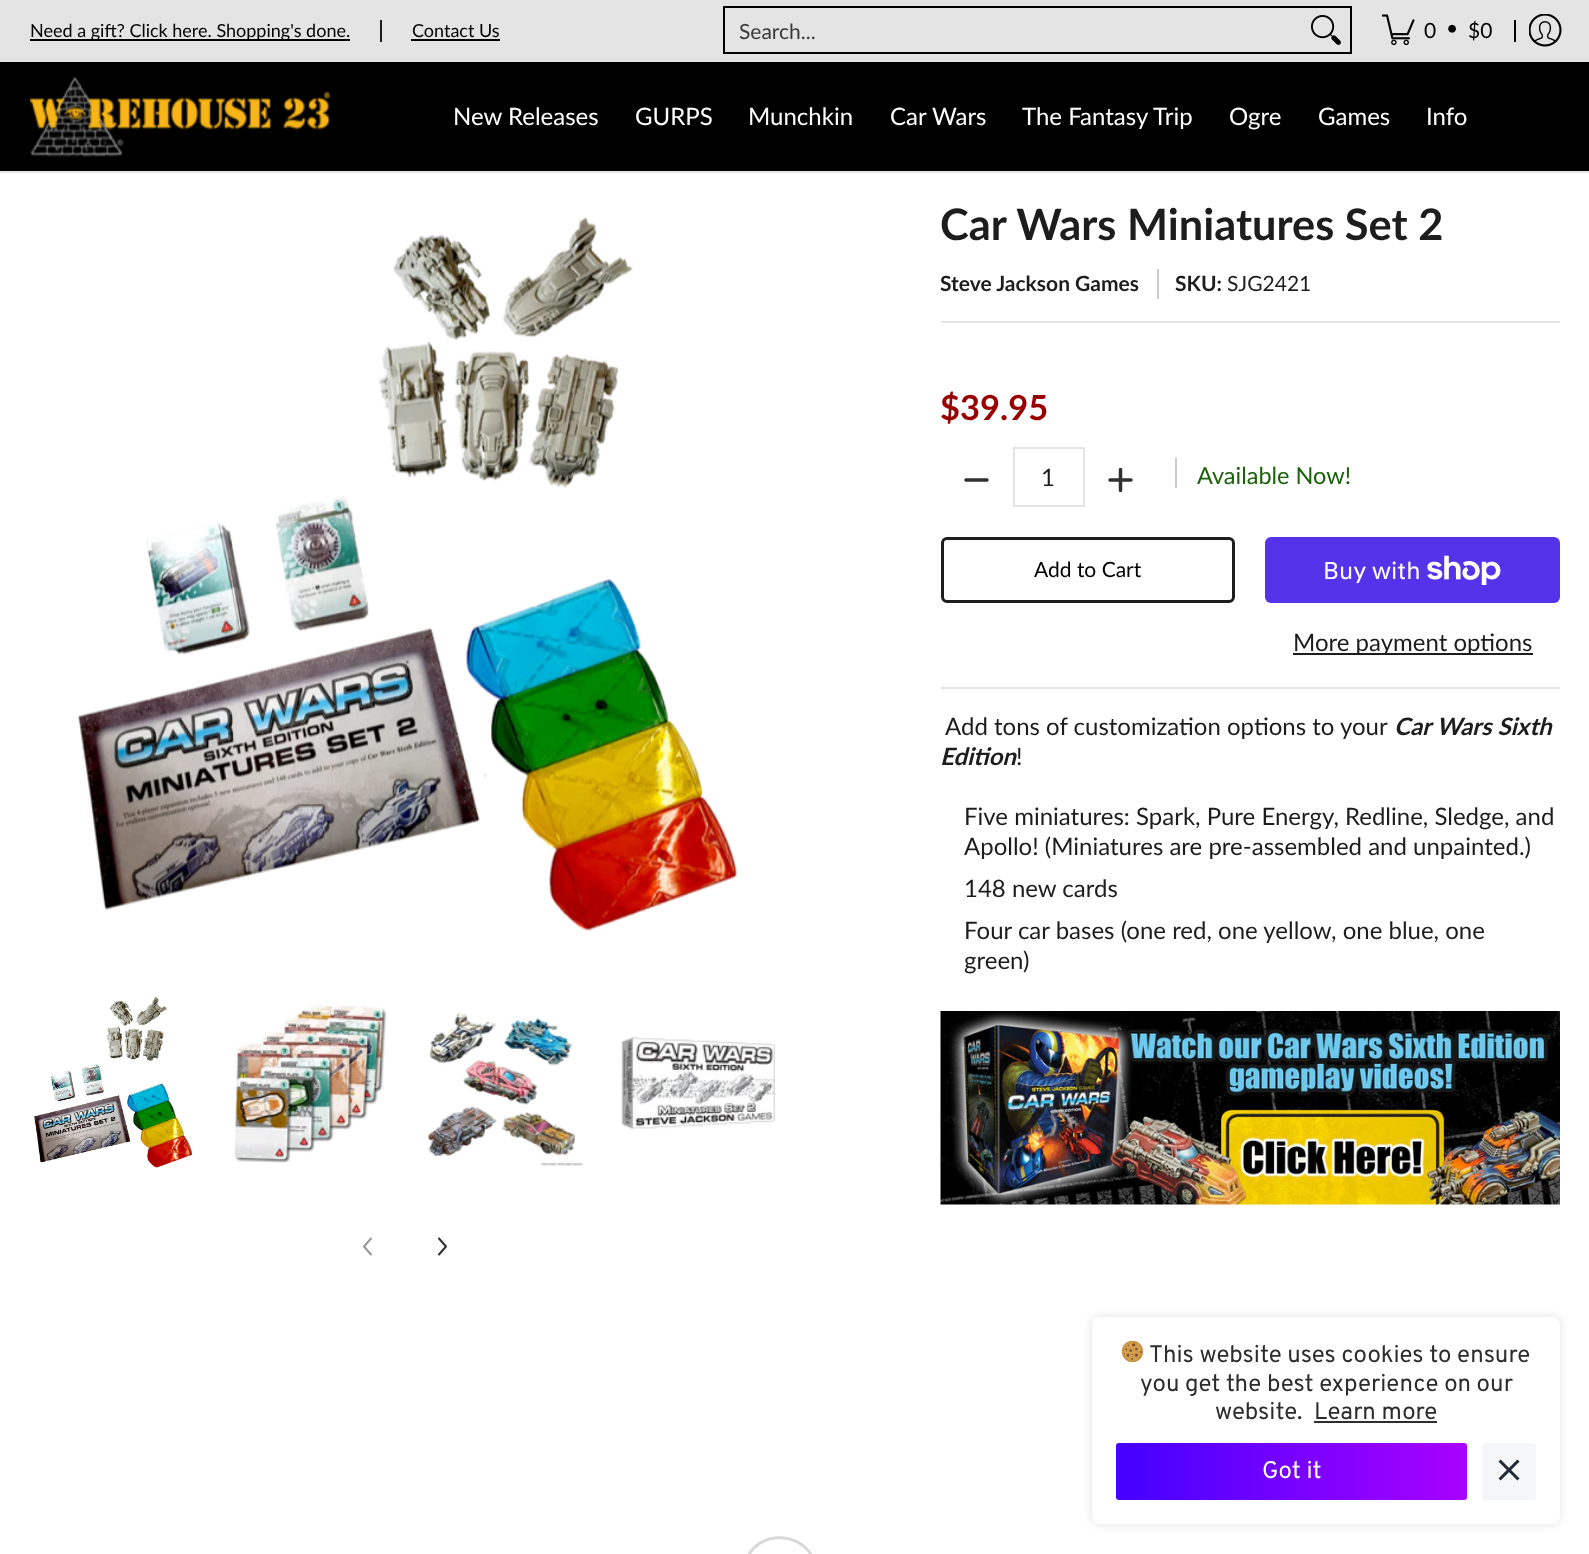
<?xml version="1.0" encoding="UTF-8"?>
<svg xmlns="http://www.w3.org/2000/svg" width="1589" height="1554">
    <defs>
        <clipPath id="clip1"><path d="M 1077 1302 H 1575 V 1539 H 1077 Z M 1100 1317 H 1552 C 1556.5 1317 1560 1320.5 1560 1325 V 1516 C 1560 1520.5 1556.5 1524 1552 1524 H 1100 C 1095.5 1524 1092 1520.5 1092 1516 V 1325 C 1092 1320.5 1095.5 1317 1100 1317 Z" clip-rule="evenodd"/></clipPath>
        <filter id="blur1" x="-50%" y="-200%" width="200%" height="500%"><feGaussianBlur stdDeviation="4.5"/></filter>
        <linearGradient id="g1" gradientUnits="userSpaceOnUse" x1="1116" y1="1472" x2="1467" y2="1472"><stop offset="0" stop-color="#4401FF"/><stop offset="1" stop-color="#A901FF"/></linearGradient>
    </defs>
    <rect width="100%" height="100%" fill="#FFFFFF"/>
    <rect x="0" y="62" width="1589" height="109" fill="#000000"/>
    <rect x="0" y="0" width="1589" height="62" fill="#E4E4E4"/>
    <rect x="30" y="39" width="320" height="2" fill="#000000"/>
    <text x="30" y="37" font-family="Lato" font-size="18" fill="#000000">Need a gift? Click here. Shopping's done.</text>
    <rect x="380" y="20" width="2" height="22" fill="#1D1D1D"/>
    <text x="412" y="37" font-family="Lato" font-size="18" fill="#000000">Contact Us</text>
    <rect x="411" y="39" width="89" height="2" fill="#000000"/>
    <rect x="724" y="7" width="627" height="46" fill="none" stroke="#000000" stroke-width="2"/>
    <text x="739" y="39" font-family="Lato" font-size="21" fill="#393939">Search...</text>
    <image x="1311" y="15" width="30" height="30" href="img_01.png"/>
    <image x="1382" y="14" width="33" height="32" href="img_02.png"/>
    <text x="1424" y="38" font-family="Lato" font-size="21" fill="#000000">0</text>
    <text x="1446" y="35" font-family="Lato" font-size="21" fill="#000000">•</text>
    <text x="1468" y="38" font-family="Lato" font-size="21" fill="#000000">$0</text>
    <rect x="1514" y="20" width="2" height="22" fill="#000000"/>
    <image x="1529" y="14" width="33" height="33" href="img_03.png"/>
    <rect x="0" y="171" width="1589" height="2" fill="#E4E4E4"/>
    <image x="30" y="77" width="300" height="80" href="img_04.png"/>
    <text x="453" y="125" font-family="Lato" font-size="24" fill="#FFFFFF">New Releases</text>
    <text x="635" y="125" font-family="Lato" font-size="24" fill="#FFFFFF">GURPS</text>
    <text x="748" y="125" font-family="Lato" font-size="24" fill="#FFFFFF">Munchkin</text>
    <text x="890" y="125" font-family="Lato" font-size="24" fill="#FFFFFF">Car Wars</text>
    <text x="1022" y="125" font-family="Lato" font-size="24" fill="#FFFFFF">The Fantasy Trip</text>
    <text x="1229" y="125" font-family="Lato" font-size="24" fill="#FFFFFF">Ogre</text>
    <text x="1318" y="125" font-family="Lato" font-size="24" fill="#FFFFFF">Games</text>
    <text x="1426" y="125" font-family="Lato" font-size="24" fill="#FFFFFF">Info</text>
    <image x="77" y="217" width="660" height="714" href="img_05.png"/>
    <image x="34" y="996" width="158" height="172" href="img_06.png"/>
    <image x="234" y="1005" width="153" height="158" href="img_07.png"/>
    <image x="427" y="1013" width="156" height="153" href="img_08.png"/>
    <image x="621" y="1036" width="155" height="94" href="img_09.png"/>
    <path d="M 371 1238.5 L 364 1246.5 L 371 1254.5" fill="none" stroke="#989898" stroke-width="2" stroke-linecap="round" stroke-linejoin="round"/>
    <path d="M 439 1254.5 L 446 1246.5 L 439 1238.5" fill="none" stroke="#303030" stroke-width="2" stroke-linecap="round" stroke-linejoin="round"/>
    <text x="940" y="240" font-family="Lato" font-size="43.4" font-weight="700" fill="#1D1D1D">Car Wars Miniatures Set 2</text>
    <rect x="941" y="321" width="619" height="2" fill="#E4E4E4"/>
    <text x="940" y="291" font-family="Lato" font-size="21" font-weight="700" fill="#1D1D1D">Steve Jackson Games</text>
    <rect x="1157" y="269" width="2" height="30" fill="#CBCBCB"/>
    <text x="1175" y="291" font-family="Lato" font-size="21" font-weight="700" fill="#1D1D1D">SKU:</text>
    <text x="1227" y="291" font-family="Lato" font-size="21" fill="#1D1D1D">SJG2421</text>
    <text x="940" y="420" font-family="Lato" font-size="34.5" font-weight="700" fill="#990000">$39.95</text>
    <path d="M 987 480 H 966" fill="none" stroke="#303030" stroke-width="3.5" stroke-linecap="round" stroke-linejoin="round"/>
    <rect x="1014" y="448" width="70" height="58" fill="none" stroke="#E4E4E4" stroke-width="2"/>
    <text x="1041" y="486" font-family="Lato" font-size="24" fill="#1D1D1D">1</text>
    <path d="M 1120.5 469.5 V 490.5 M 1131 480 H 1110" fill="none" stroke="#303030" stroke-width="3.5" stroke-linecap="round" stroke-linejoin="round"/>
    <rect x="1175" y="458" width="2" height="30" fill="#CBCBCB"/>
    <text x="1197" y="484" font-family="Lato" font-size="23.5" fill="#1B6109">Available Now!</text>
    <rect x="941" y="687" width="619" height="2" fill="#E4E4E4"/>
    <rect x="942.5" y="538.5" width="291" height="63" rx="4.5" fill="none" stroke="#1D1D1D" stroke-width="3"/>
    <text x="1034" y="577" font-family="Lato" font-size="21" fill="#000000">Add to Cart</text>
    <rect x="1265" y="537" width="295" height="66" rx="6" fill="#5433EB"/>
    <text x="1323" y="579" font-family="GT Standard" font-size="24" fill="#FFFFFF">Buy with</text>
    <image x="1427" y="555" width="74" height="30" href="img_10.png"/>
    <rect x="1293" y="653" width="240" height="2" fill="#1D1D1D"/>
    <text x="1293" y="651" font-family="Lato" font-size="24" fill="#1D1D1D">More payment options</text>
    <text x="945" y="735" font-family="Lato" font-size="24" fill="#1D1D1D">Add tons of customization options to your</text>
    <text x="1394" y="735" font-family="Lato" font-size="24" font-weight="700" font-style="italic" fill="#1D1D1D">Car Wars Sixth</text>
    <text x="940" y="765" font-family="Lato" font-size="24" font-weight="700" font-style="italic" fill="#1D1D1D">Edition</text>
    <text x="1016" y="765" font-family="Lato" font-size="24" fill="#1D1D1D">!</text>
    <text font-family="Lato" font-size="24" fill="#1D1D1D">
        <tspan x="964" y="825">Five miniatures: Spark, Pure Energy, Redline, Sledge, and</tspan>
        <tspan x="964" y="855">Apollo! (Miniatures are pre-assembled and unpainted.)</tspan>
        <tspan x="964" y="897">148 new cards</tspan>
        <tspan x="964" y="939">Four car bases (one red, one yellow, one blue, one</tspan>
        <tspan x="964" y="969">green)</tspan>
    </text>
    <image x="940" y="1011" width="620" height="194" href="img_11.png"/>
    <path d="M 754.5 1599 C 746 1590.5 742.5 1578 744.5 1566.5 C 753 1524 816 1530.5 816 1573.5 C 816 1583 812 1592.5 805.5 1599" fill="none" stroke="#D8D8D8" stroke-width="3"/>
    <g clip-path="url(#clip1)">
        <rect x="1092" y="1317" width="468" height="207" rx="8" fill="#000000" fill-opacity="0.12" filter="url(#blur1)"/>
    </g>
    <image x="1122" y="1341" width="22" height="21" href="img_12.png"/>
    <text x="1149" y="1362" font-family="Overpass" font-size="24" fill="#2D2D2D">This website uses cookies to ensure</text>
    <text x="1140" y="1391" font-family="Overpass" font-size="24" fill="#2D2D2D">you get the best experience on our</text>
    <text x="1215" y="1419" font-family="Overpass" font-size="24" fill="#2D2D2D">website.</text>
    <text x="1314" y="1419" font-family="Overpass" font-size="24" fill="#2D2D2D">Learn more</text>
    <rect x="1314" y="1421" width="123" height="2" fill="#2D2D2D"/>
    <rect x="1116" y="1443" width="351" height="57" rx="3" fill="url(#g1)"/>
    <text x="1262" y="1478" font-family="Overpass" font-size="24" fill="#FFFFFF">Got it</text>
    <rect x="1482" y="1443" width="54" height="57" rx="3" fill="#F4F6F8"/>
    <image x="1498" y="1459" width="22" height="22" href="img_13.png"/>
</svg>
